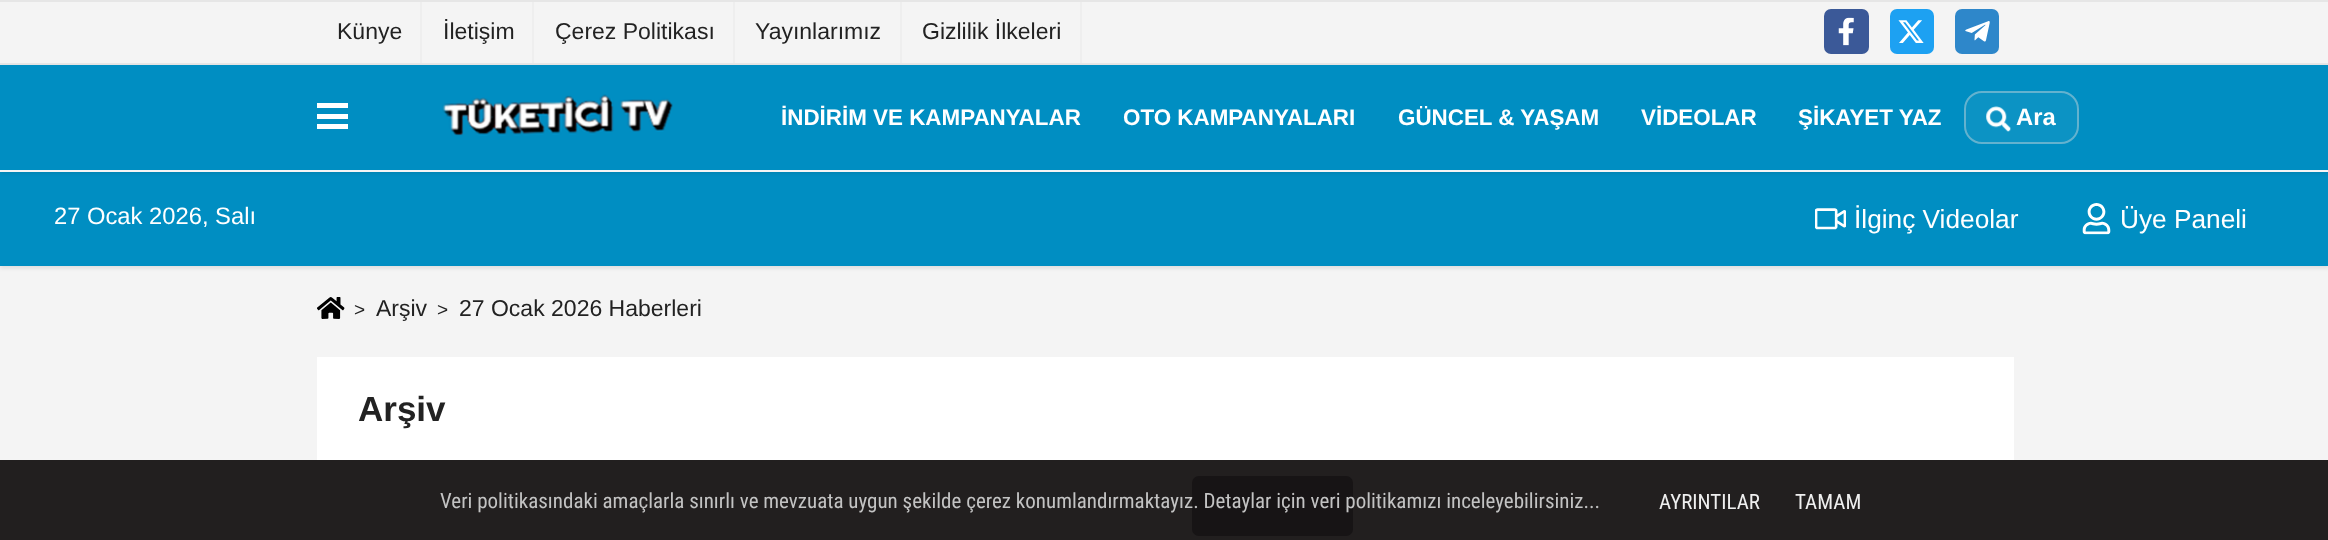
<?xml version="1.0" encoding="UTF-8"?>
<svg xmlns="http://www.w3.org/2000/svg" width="2328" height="540">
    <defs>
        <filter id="blur1" x="-50%" y="-200%" width="200%" height="500%"><feGaussianBlur stdDeviation="2"/></filter>
    </defs>
    <rect width="100%" height="100%" fill="#F4F4F4"/>
    <rect x="0" y="460" width="2328" height="80" fill="#221F1F"/>
    <rect x="0" y="0" width="2328" height="2" fill="#E6E6E6"/>
    <rect x="420" y="2" width="2" height="61" fill="#EEEEEE"/>
    <text x="337" y="39" font-family="Liberation Sans" font-size="23" fill="#222222">Künye</text>
    <rect x="532" y="2" width="2" height="61" fill="#EEEEEE"/>
    <text x="443" y="39" font-family="Liberation Sans" font-size="23" fill="#222222">İletişim</text>
    <rect x="733" y="2" width="2" height="61" fill="#EEEEEE"/>
    <text x="555" y="39" font-family="Liberation Sans" font-size="23" fill="#222222">Çerez Politikası</text>
    <rect x="900" y="2" width="2" height="61" fill="#EEEEEE"/>
    <text x="755" y="39" font-family="Liberation Sans" font-size="23" fill="#222222">Yayınlarımız</text>
    <rect x="1080" y="2" width="2" height="61" fill="#EEEEEE"/>
    <text x="922" y="39" font-family="Liberation Sans" font-size="23" fill="#222222">Gizlilik İlkeleri</text>
    <rect x="1824" y="9" width="45" height="45" rx="7" fill="#3B5998"/>
    <image x="1838" y="17" width="16" height="29" href="img_01.png"/>
    <rect x="1890" y="9" width="44" height="45" rx="7" fill="#1DA1F2"/>
    <image x="1898" y="20" width="26" height="23" href="img_02.png"/>
    <rect x="1955" y="9" width="44" height="45" rx="7" fill="#2E87CA"/>
    <image x="1965" y="21" width="25" height="21" href="img_03.png"/>
    <rect x="0" y="63" width="2328" height="2" fill="#E6E6E6"/>
    <rect x="0" y="173" width="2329" height="95" fill="#000000" fill-opacity="0.1" filter="url(#blur1)"/>
    <rect x="0" y="172" width="2328" height="94" fill="#008EC2"/>
    <rect x="0" y="67" width="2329" height="106" fill="#000000" fill-opacity="0.1" filter="url(#blur1)"/>
    <rect x="0" y="65" width="2328" height="105" fill="#008EC2"/>
    <rect x="0" y="170" width="2328" height="2" fill="#F5F5F5"/>
    <rect x="317" y="103" width="31" height="5" fill="#FFFFFF"/>
    <rect x="317" y="114" width="31" height="5" fill="#FFFFFF"/>
    <rect x="317" y="124" width="31" height="5" fill="#FFFFFF"/>
    <image x="442" y="94" width="231" height="42" href="img_04.png"/>
    <text x="781" y="125" font-family="Liberation Sans" font-size="22.4" font-weight="700" fill="#FFFFFF">İNDİRİM VE KAMPANYALAR</text>
    <text x="1123" y="125" font-family="Liberation Sans" font-size="22.4" font-weight="700" fill="#FFFFFF">OTO KAMPANYALARI</text>
    <text x="1398" y="125" font-family="Liberation Sans" font-size="22.4" font-weight="700" fill="#FFFFFF">GÜNCEL &amp; YAŞAM</text>
    <text x="1641" y="125" font-family="Liberation Sans" font-size="22.4" font-weight="700" fill="#FFFFFF">VİDEOLAR</text>
    <text x="1798" y="125" font-family="Liberation Sans" font-size="22.4" font-weight="700" fill="#FFFFFF">ŞİKAYET YAZ</text>
    <rect x="1964" y="91" width="115" height="53" rx="18" fill="#0C93C4"/>
    <rect x="1965" y="92" width="113" height="51" rx="17" fill="none" stroke="#DDDDDD" stroke-opacity="0.42" stroke-width="2"/>
    <image x="1986" y="106" width="25" height="26" href="img_05.png"/>
    <text x="2016" y="125" font-family="Liberation Sans" font-size="23.75" font-weight="700" fill="#FFFFFF">Ara</text>
    <text x="54" y="224" font-family="Liberation Sans" font-size="23.75" fill="#FFFFFF">27 Ocak 2026, Salı</text>
    <image x="1815" y="208" width="31" height="22" href="img_06.png"/>
    <text x="1854" y="228" font-family="Liberation Sans" font-size="26.25" fill="#FFFFFF">İlginç Videolar</text>
    <image x="2082" y="203" width="29" height="32" href="img_07.png"/>
    <text x="2120" y="228" font-family="Liberation Sans" font-size="26.25" fill="#FFFFFF">Üye Paneli</text>
    <image x="317" y="297" width="28" height="22" href="img_08.png"/>
    <text x="354" y="316" font-family="Liberation Sans" font-size="19" fill="#222222">&gt;</text>
    <text x="376" y="316" font-family="Liberation Sans" font-size="23" fill="#222222">Arşiv</text>
    <text x="437" y="316" font-family="Liberation Sans" font-size="19" fill="#222222">&gt;</text>
    <text x="459" y="316" font-family="Liberation Sans" font-size="23" fill="#222222">27 Ocak 2026 Haberleri</text>
    <rect x="317" y="357" width="1697" height="103" fill="#FFFFFF"/>
    <text x="358" y="421" font-family="Liberation Sans" font-size="35" font-weight="700" fill="#222222">Arşiv</text>
    <rect x="1192" y="476" width="161" height="60" rx="7" fill="#171415"/>
    <text x="440" y="508" font-family="Roboto Condensed" font-size="21" fill="#C3C3C3">Veri politikasındaki amaçlarla sınırlı ve mevzuata uygun şekilde çerez konumlandırmaktayız. Detaylar için veri politikamızı inceleyebilirsiniz...</text>
    <text x="1659" y="509" font-family="Roboto Condensed" font-size="21" fill="#EFEFEF">AYRINTILAR</text>
    <text x="1795" y="509" font-family="Roboto Condensed" font-size="21" fill="#EFEFEF">TAMAM</text>
</svg>
